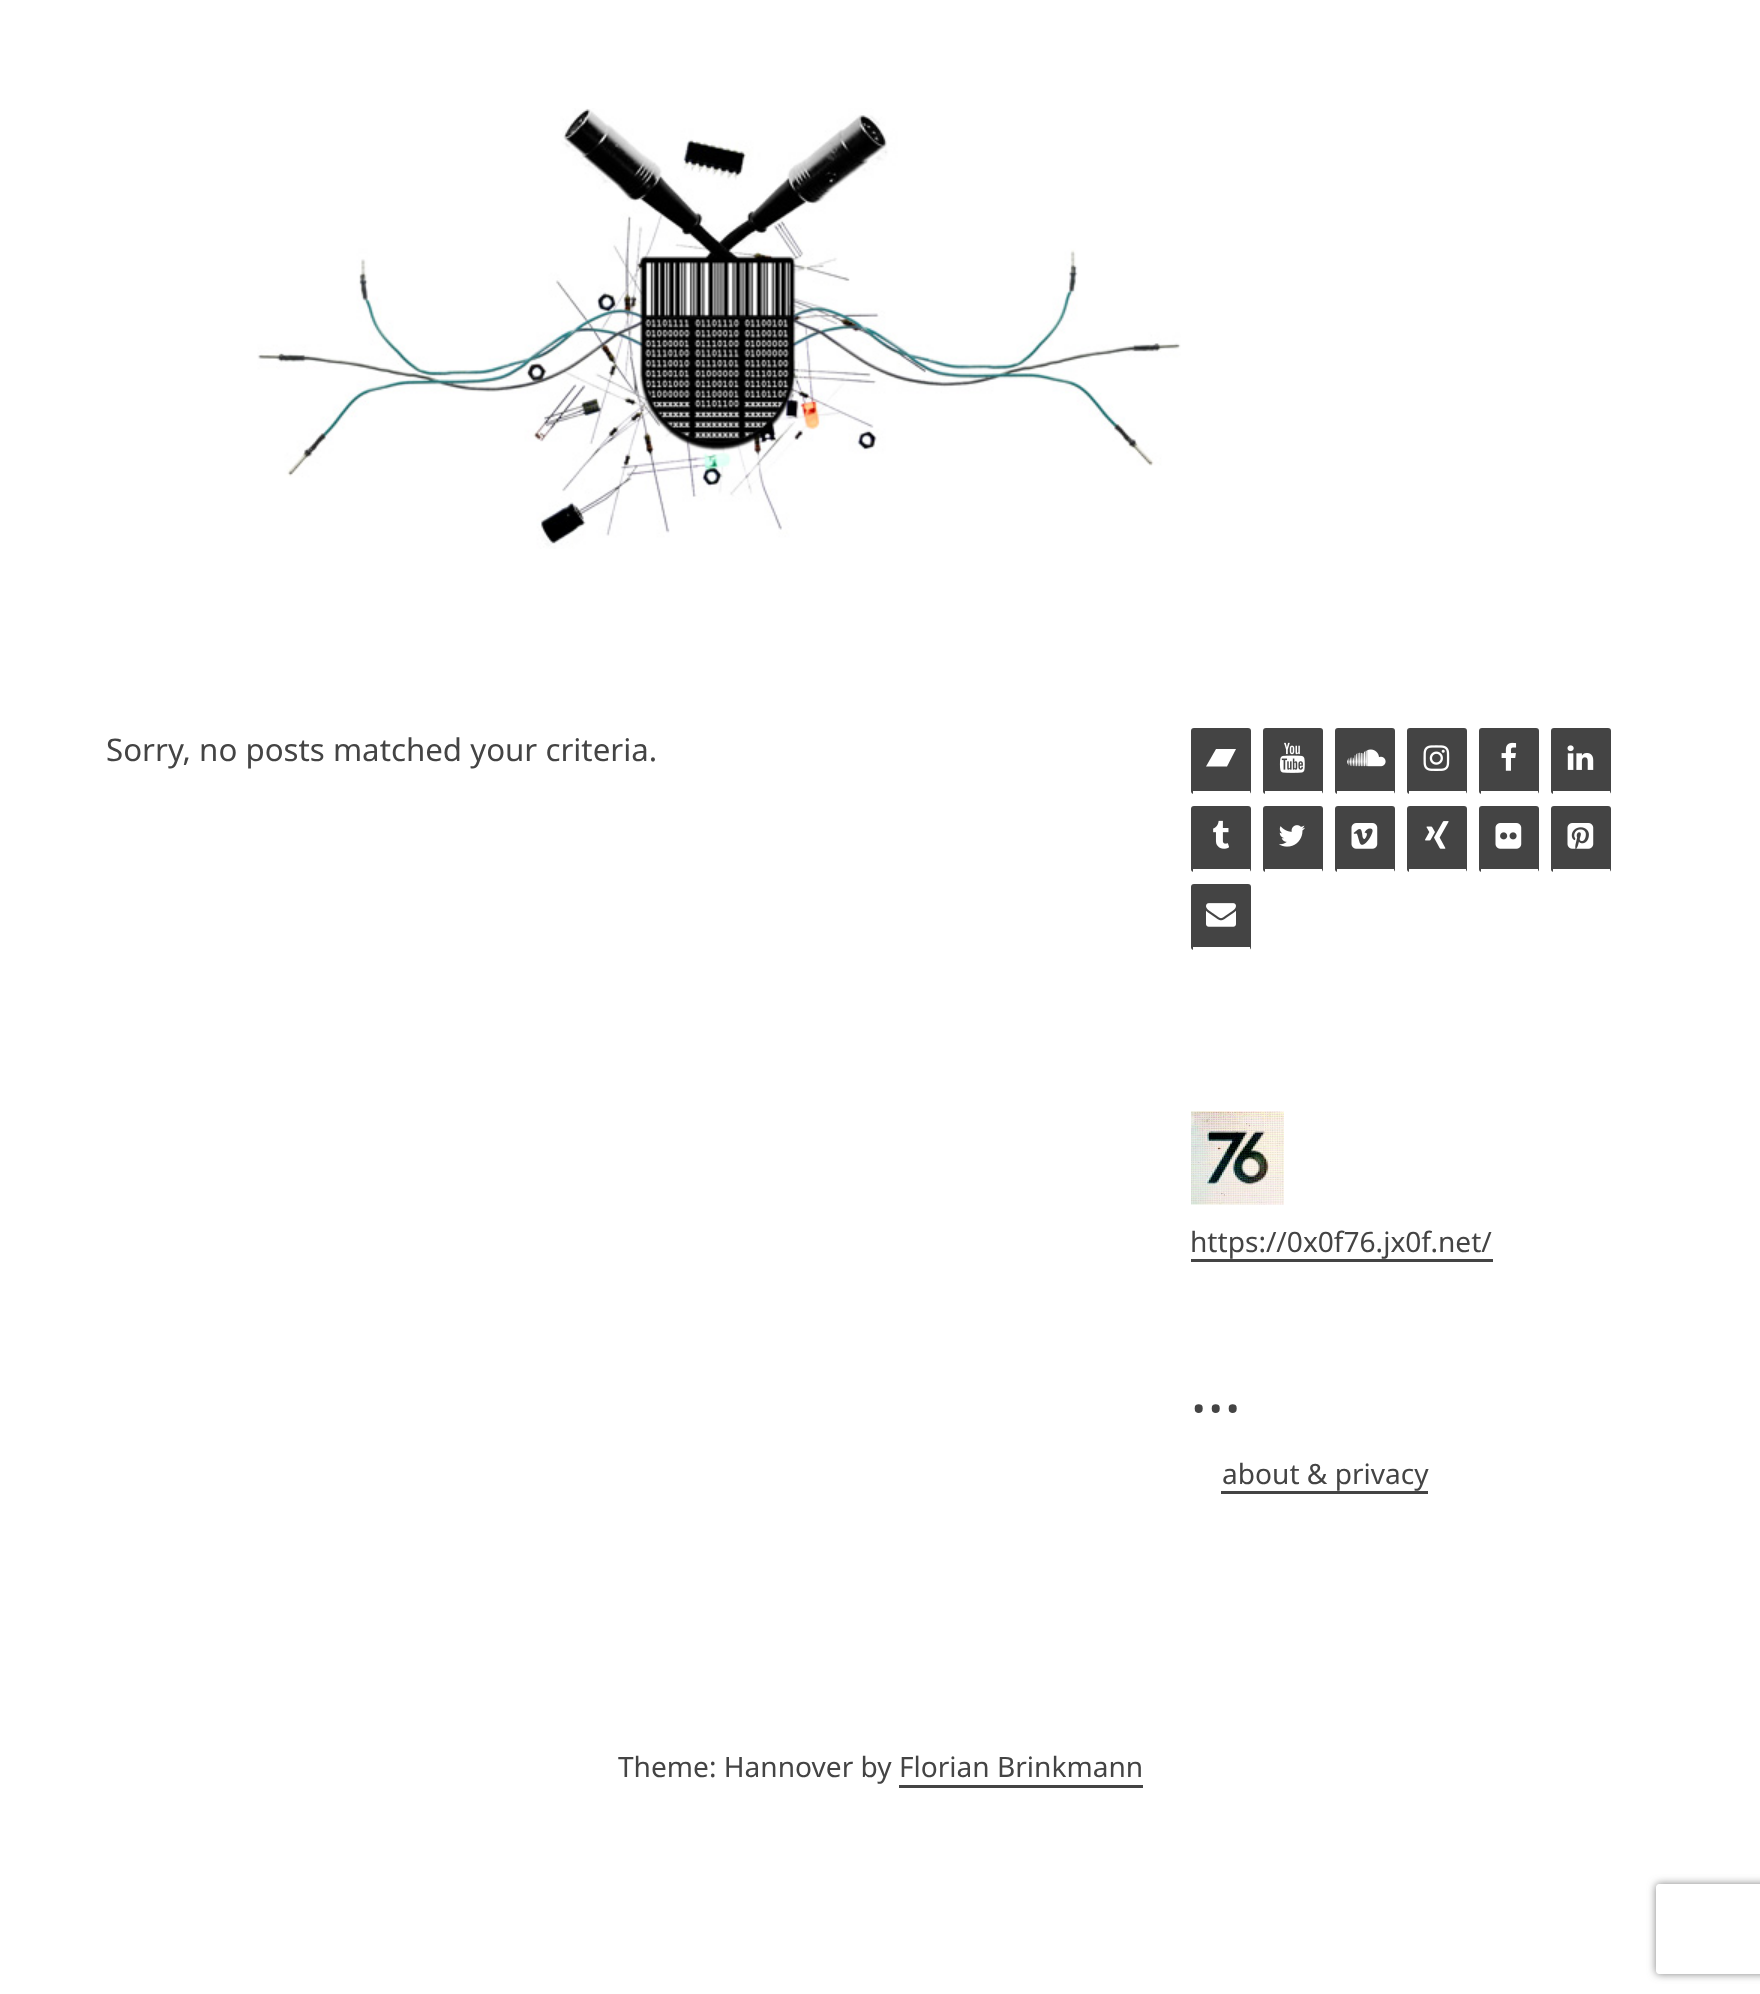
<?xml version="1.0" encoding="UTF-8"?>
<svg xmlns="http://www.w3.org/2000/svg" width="1760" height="1994">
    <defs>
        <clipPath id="clip1"><path d="M 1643 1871 H 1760 V 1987 H 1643 Z M 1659 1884 H 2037 C 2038.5 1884 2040 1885.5 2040 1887 V 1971 C 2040 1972.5 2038.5 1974 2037 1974 H 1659 C 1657.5 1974 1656 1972.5 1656 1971 V 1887 C 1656 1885.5 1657.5 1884 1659 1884 Z" clip-rule="evenodd"/></clipPath>
        <filter id="blur1" x="-50%" y="-200%" width="200%" height="500%"><feGaussianBlur stdDeviation="4"/></filter>
    </defs>
    <rect width="100%" height="100%" fill="#FFFFFF"/>
    <image x="257" y="108" width="924" height="441" href="img_01.png"/>
    <text x="106" y="761" font-family="Noto Sans" font-size="31.25" fill="#444444">Sorry, no posts matched your criteria.</text>
    <rect x="1191" y="728" width="60" height="66" rx="3" fill="#444444"/>
    <rect x="1193" y="791" width="57" height="3" fill="#FFFFFF"/>
    <path d="M 1206 766.5 H 1227 L 1236 749 H 1216 Z" fill="#FFFFFF"/>
    <rect x="1263" y="728" width="60" height="66" rx="3" fill="#444444"/>
    <rect x="1265" y="791" width="57" height="3" fill="#FFFFFF"/>
    <image x="1279" y="742" width="26" height="31" href="img_02.png"/>
    <rect x="1335" y="728" width="60" height="66" rx="3" fill="#444444"/>
    <rect x="1337" y="791" width="57" height="3" fill="#FFFFFF"/>
    <image x="1347" y="749" width="39" height="18" href="img_03.png"/>
    <rect x="1407" y="728" width="60" height="66" rx="3" fill="#444444"/>
    <rect x="1409" y="791" width="57" height="3" fill="#FFFFFF"/>
    <image x="1423" y="745" width="27" height="26" href="img_04.png"/>
    <rect x="1479" y="728" width="60" height="66" rx="3" fill="#444444"/>
    <rect x="1481" y="791" width="57" height="3" fill="#FFFFFF"/>
    <image x="1501" y="742" width="16" height="29" href="img_05.png"/>
    <rect x="1551" y="728" width="60" height="66" rx="3" fill="#444444"/>
    <rect x="1553" y="791" width="57" height="3" fill="#FFFFFF"/>
    <image x="1567" y="745" width="27" height="25" href="img_06.png"/>
    <rect x="1191" y="806" width="60" height="66" rx="3" fill="#444444"/>
    <rect x="1193" y="869" width="57" height="3" fill="#FFFFFF"/>
    <image x="1213" y="820" width="16" height="29" href="img_07.png"/>
    <rect x="1263" y="806" width="60" height="66" rx="3" fill="#444444"/>
    <rect x="1265" y="869" width="57" height="3" fill="#FFFFFF"/>
    <image x="1279" y="825" width="26" height="22" href="img_08.png"/>
    <rect x="1335" y="806" width="60" height="66" rx="3" fill="#444444"/>
    <rect x="1337" y="869" width="57" height="3" fill="#FFFFFF"/>
    <image x="1351" y="823" width="27" height="26" href="img_09.png"/>
    <rect x="1407" y="806" width="60" height="66" rx="3" fill="#444444"/>
    <rect x="1409" y="869" width="57" height="3" fill="#FFFFFF"/>
    <image x="1425" y="821" width="24" height="28" href="img_10.png"/>
    <rect x="1479" y="806" width="60" height="66" rx="3" fill="#444444"/>
    <rect x="1481" y="869" width="57" height="3" fill="#FFFFFF"/>
    <image x="1495" y="823" width="27" height="26" href="img_11.png"/>
    <rect x="1551" y="806" width="60" height="66" rx="3" fill="#444444"/>
    <rect x="1553" y="869" width="57" height="3" fill="#FFFFFF"/>
    <image x="1567" y="823" width="27" height="26" href="img_12.png"/>
    <rect x="1191" y="884" width="60" height="66" rx="3" fill="#444444"/>
    <rect x="1193" y="947" width="57" height="3" fill="#FFFFFF"/>
    <image x="1206" y="903" width="30" height="24" href="img_13.png"/>
    <image x="1191" y="1111" width="93" height="94" href="img_14.png"/>
    <text x="1190" y="1252" font-family="Noto Sans" font-size="28.1" fill="#444444">https://0x0f76.jx0f.net/</text>
    <rect x="1191" y="1259" width="302" height="3" fill="#444444"/>
    <text x="1190" y="1412" font-family="Noto Sans" font-size="65" fill="#444444">…</text>
    <text x="1222" y="1484" font-family="Noto Sans" font-size="28.1" fill="#444444">about &amp; privacy</text>
    <rect x="1221" y="1491" width="207" height="3" fill="#444444"/>
    <text x="618" y="1777" font-family="Noto Sans" font-size="28.1" fill="#444444">Theme: Hannover by Florian Brinkmann</text>
    <rect x="899" y="1785" width="244" height="3" fill="#444444"/>
    <g clip-path="url(#clip1)">
        <rect x="1656" y="1884" width="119" height="90" rx="3" fill="#808080" filter="url(#blur1)"/>
    </g>
</svg>
